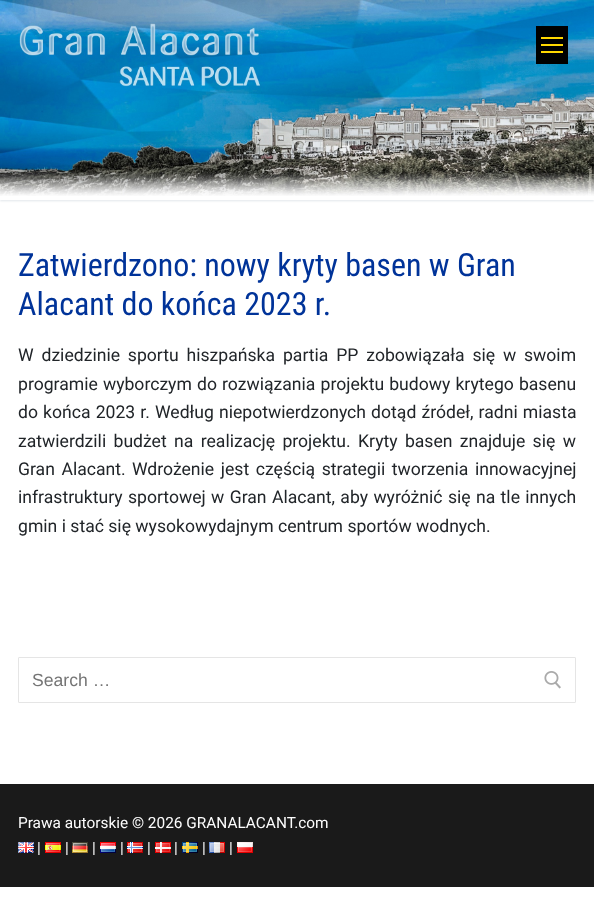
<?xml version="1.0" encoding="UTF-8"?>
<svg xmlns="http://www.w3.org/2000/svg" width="594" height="906">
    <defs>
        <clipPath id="clip1"><rect x="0" y="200" width="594" height="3"/></clipPath>
        <filter id="blur1" x="-50%" y="-200%" width="200%" height="500%"><feGaussianBlur stdDeviation="1"/></filter>
    </defs>
    <rect width="100%" height="100%" fill="#FFFFFF"/>
    <g clip-path="url(#clip1)">
        <rect x="0" y="1" width="594" height="200" fill="#E1E5EA" filter="url(#blur1)"/>
    </g>
    <image x="0" y="0" width="594" height="196" href="img_01.png"/>
    <rect x="536" y="26" width="32" height="38" fill="#000000"/>
    <rect x="541" y="44" width="22" height="2" fill="#FFD700"/>
    <rect x="541" y="37" width="22" height="2" fill="#FFD700"/>
    <rect x="541" y="51" width="22" height="2" fill="#FFD700"/>
    <text font-family="Roboto Condensed" font-size="32" fill="#003399">
        <tspan x="18" y="276">Zatwierdzono: nowy kryty basen w Gran</tspan>
        <tspan x="18" y="315">Alacant do końca 2023 r.</tspan>
    </text>
    <text font-family="Roboto" font-size="17.6" fill="#212529">
        <tspan x="18" y="361" word-spacing="3.5">W dziedzinie sportu hiszpańska partia PP zobowiązała się w swoim</tspan>
        <tspan x="18" y="390" word-spacing="0.75">programie wyborczym do rozwiązania projektu budowy krytego basenu</tspan>
        <tspan x="18" y="418" word-spacing="0.75">do końca 2023 r. Według niepotwierdzonych dotąd źródeł, radni miasta</tspan>
        <tspan x="18" y="447" word-spacing="3">zatwierdzili budżet na realizację projektu.</tspan>
    </text>
    <text x="358" y="447" word-spacing="3" font-family="Roboto" font-size="17.6" fill="#212529">Kryty basen znajduje się w</text>
    <text x="18" y="475" word-spacing="2.25" font-family="Roboto" font-size="17.6" fill="#212529">Gran Alacant.</text>
    <text x="132" y="475" word-spacing="2.25" font-family="Roboto" font-size="17.6" fill="#212529">Wdrożenie jest częścią strategii tworzenia innowacyjnej</text>
    <text font-family="Roboto" font-size="17.6" fill="#212529">
        <tspan x="18" y="503" word-spacing="1">infrastruktury sportowej w Gran Alacant, aby wyróżnić się na tle innych</tspan>
        <tspan x="18" y="532">gmin i stać się wysokowydajnym centrum sportów wodnych.</tspan>
    </text>
    <rect x="18.5" y="657.5" width="557" height="45" rx="0.5" fill="none" stroke="#E5E5E5"/>
    <text x="32" y="686" font-family="Liberation Sans" font-size="17.6" fill="#757575">Search …</text>
    <image x="544" y="671" width="17" height="18" href="img_02.png"/>
    <rect x="0" y="784" width="594" height="103" fill="#1A1A1A"/>
    <text x="18" y="828" font-family="Roboto" font-size="15.4" fill="#FDFDFD">Prawa autorskie © 2026 GRANALACANT.com</text>
    <image x="18" y="842" width="16" height="11" href="img_03.png"/>
    <text x="37" y="853" font-family="Roboto" font-size="15.4" fill="#FDFDFD">|</text>
    <image x="45" y="842" width="16" height="11" href="img_04.png"/>
    <text x="65" y="853" font-family="Roboto" font-size="15.4" fill="#FDFDFD">|</text>
    <image x="72" y="842" width="16" height="11" href="img_05.png"/>
    <text x="92" y="853" font-family="Roboto" font-size="15.4" fill="#FDFDFD">|</text>
    <image x="100" y="842" width="16" height="11" href="img_06.png"/>
    <text x="120" y="853" font-family="Roboto" font-size="15.4" fill="#FDFDFD">|</text>
    <image x="127" y="842" width="16" height="11" href="img_07.png"/>
    <text x="147" y="853" font-family="Roboto" font-size="15.4" fill="#FDFDFD">|</text>
    <image x="155" y="842" width="16" height="11" href="img_08.png"/>
    <text x="174" y="853" font-family="Roboto" font-size="15.4" fill="#FDFDFD">|</text>
    <image x="182" y="842" width="16" height="11" href="img_09.png"/>
    <text x="202" y="853" font-family="Roboto" font-size="15.4" fill="#FDFDFD">|</text>
    <image x="209" y="842" width="16" height="11" href="img_10.png"/>
    <text x="229" y="853" font-family="Roboto" font-size="15.4" fill="#FDFDFD">|</text>
    <image x="237" y="842" width="16" height="11" href="img_11.png"/>
</svg>
